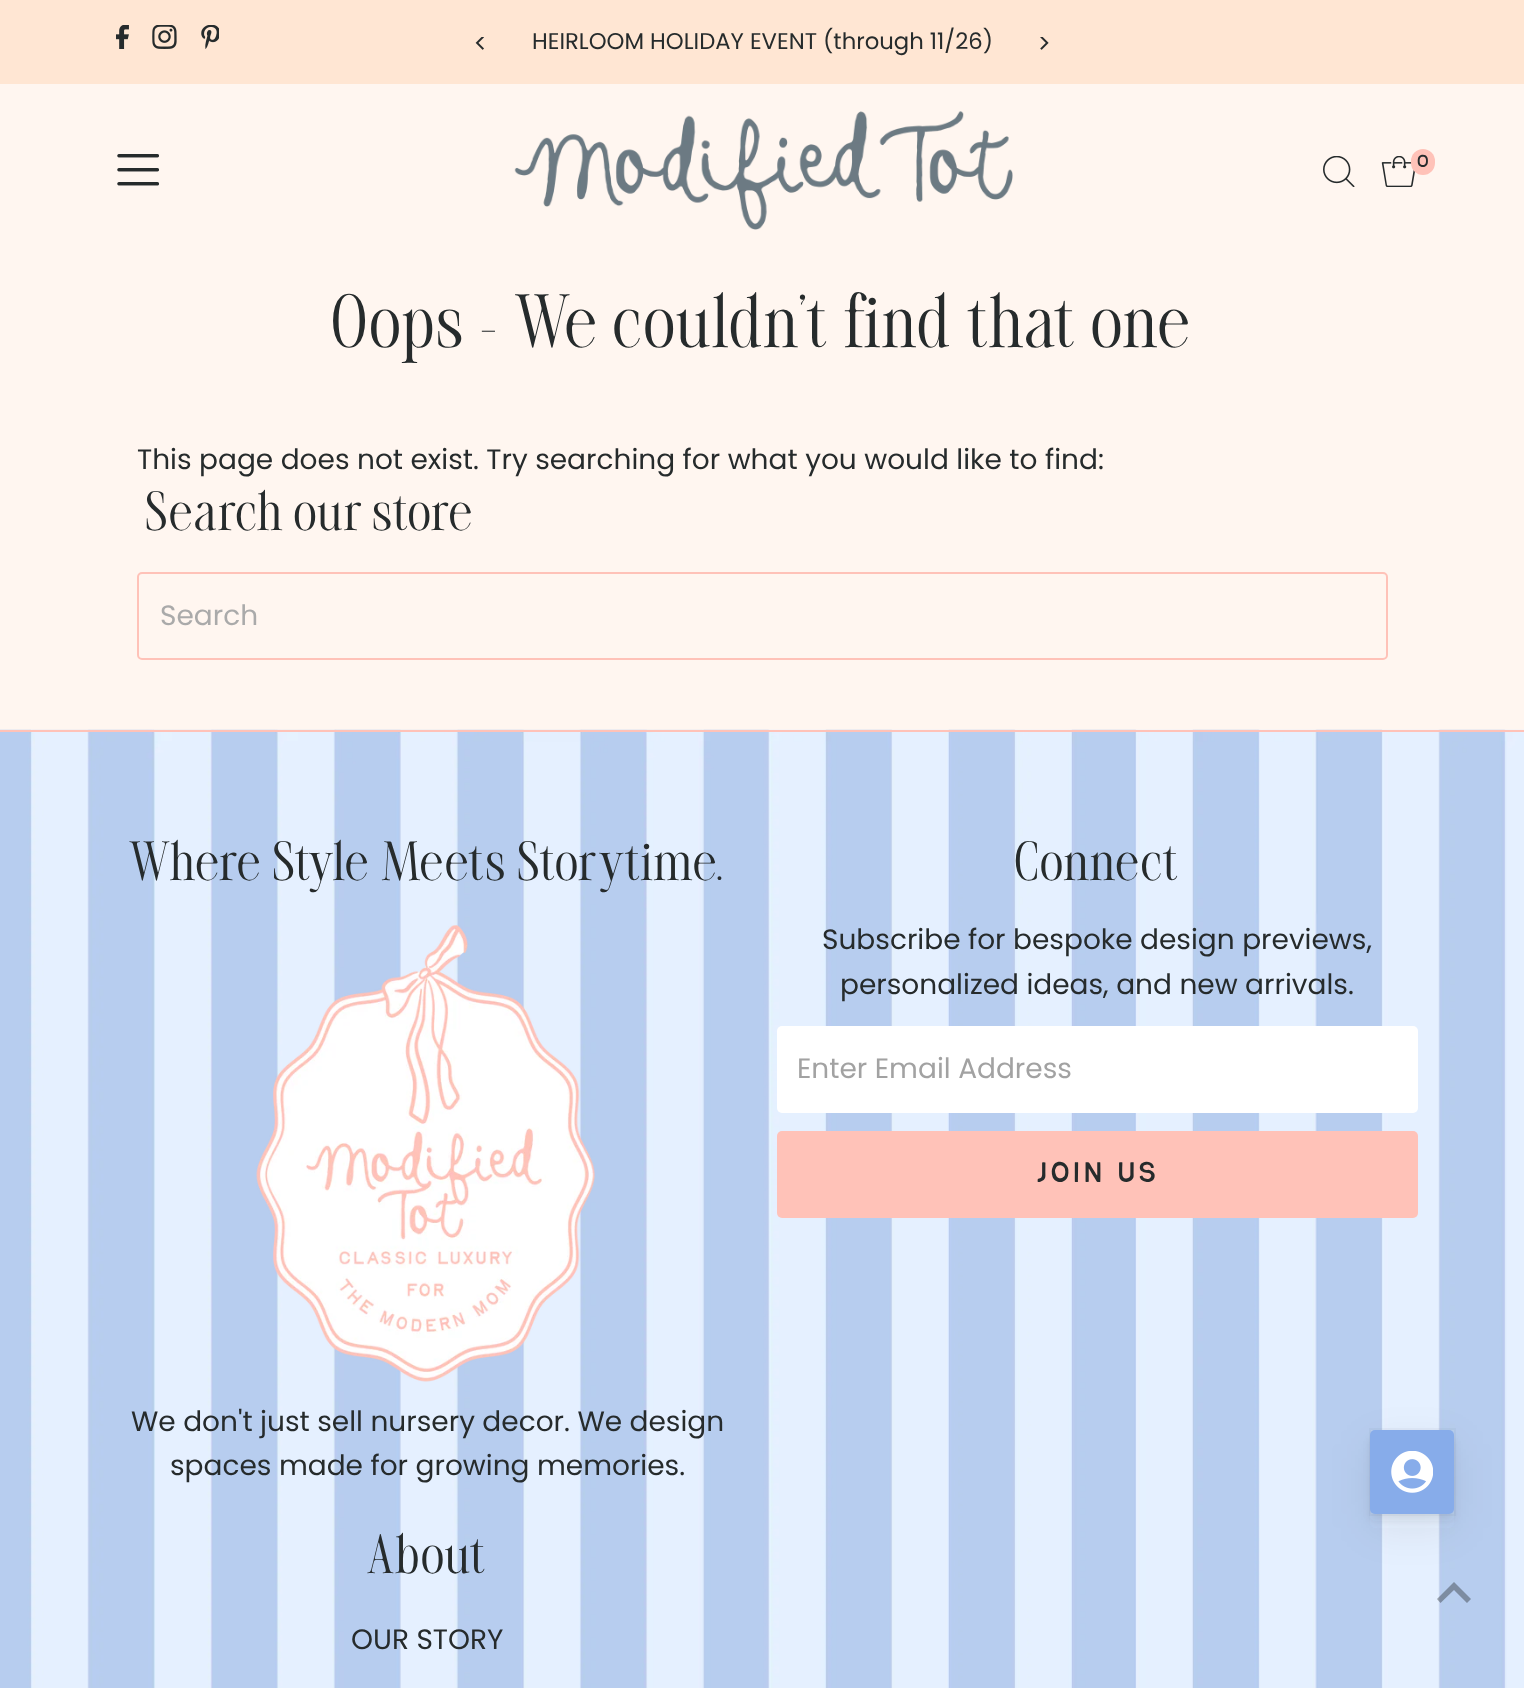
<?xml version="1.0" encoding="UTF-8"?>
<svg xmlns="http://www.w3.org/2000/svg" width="1524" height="1688">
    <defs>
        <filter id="blur1" x="-50%" y="-200%" width="200%" height="500%"><feGaussianBlur stdDeviation="21"/></filter>
        <filter id="blur2" x="-50%" y="-200%" width="200%" height="500%"><feGaussianBlur stdDeviation="3.5"/></filter>
    </defs>
    <rect width="100%" height="100%" fill="#FFF6F0"/>
    <rect x="0" y="0" width="1524" height="84" fill="#FFE6D3"/>
    <image x="116" y="25" width="13" height="24" href="img_01.png"/>
    <image x="152" y="25" width="25" height="24" href="img_02.png"/>
    <image x="201" y="25" width="18" height="24" href="img_03.png"/>
    <image x="475" y="37" width="9" height="13" href="img_04.png"/>
    <text x="532" y="49" font-family="Poppins" font-size="22.75" fill="#262B2C">HEIRLOOM HOLIDAY EVENT (through 11/26)</text>
    <image x="1040" y="37" width="9" height="13" href="img_05.png"/>
    <image x="117" y="154" width="42" height="32" href="img_06.png"/>
    <image x="514" y="111" width="499" height="119" href="img_07.png"/>
    <image x="1323" y="156" width="32" height="31" href="img_08.png"/>
    <image x="1381" y="156" width="35" height="31" href="img_09.png"/>
    <rect x="1411" y="149" width="24" height="26" rx="12" fill="#FFC2B8"/>
    <text x="1415" y="167" font-family="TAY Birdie" font-size="17" fill="#262B2C">0</text>
    <text x="332" y="347" word-spacing="-1" font-family="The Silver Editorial" font-size="52.5" letter-spacing="3.95" fill="#262B2C">Oops - We couldn't find that one</text>
    <text x="137" y="469" font-family="Poppins" font-size="28" fill="#262B2C">This page does not exist. Try searching for what you would like to find:</text>
    <text x="146" y="530" word-spacing="-2" font-family="The Silver Editorial" font-size="38.5" letter-spacing="2.9" fill="#262B2C">Search our store</text>
    <rect x="138" y="573" width="1249" height="86" rx="4" fill="none" stroke="#FFC2B8" stroke-width="2"/>
    <text x="160" y="625" font-family="Poppins" font-size="28" fill="#AAAAAA">Search</text>
    <image x="0" y="729" width="1524" height="959" href="img_10.png"/>
    <rect x="0" y="730" width="1524" height="2" fill="#FFC2B8"/>
    <text x="129" y="880" font-family="The Silver Editorial" font-size="38.5" letter-spacing="2.9" fill="#262B2C">Where Style Meets Storytime.</text>
    <image x="256" y="925" width="339" height="457" href="img_11.png"/>
    <text x="131" y="1431" font-family="Poppins" font-size="28" fill="#262B2C">We don't just sell nursery decor. We design</text>
    <text x="170" y="1475" font-family="Poppins" font-size="28" fill="#262B2C">spaces made for growing memories.</text>
    <text x="1015" y="880" font-family="The Silver Editorial" font-size="38.5" letter-spacing="2.9" fill="#262B2C">Connect</text>
    <text x="822" y="949" font-family="Poppins" font-size="28" fill="#262B2C">Subscribe for bespoke design previews,</text>
    <text x="840" y="994" font-family="Poppins" font-size="28" fill="#262B2C">personalized ideas, and new arrivals.</text>
    <rect x="777" y="1026" width="641" height="87" rx="5" fill="#FFFFFF"/>
    <text x="797" y="1078" font-family="Poppins" font-size="28" fill="#A2A2A2">Enter Email Address</text>
    <rect x="777" y="1131" width="641" height="87" rx="5" fill="#FFC2B8"/>
    <text x="1035" y="1182" font-family="TAY Birdie" font-size="28" fill="#262B2C">join us</text>
    <text x="367" y="1573" font-family="The Silver Editorial" font-size="38.5" letter-spacing="2.9" fill="#262B2C">About</text>
    <text x="351" y="1649" font-family="Poppins" font-size="28" fill="#262B2C">OUR STORY</text>
    <path d="M 1454 1582 L 1437 1599 L 1440.5 1603 L 1454 1590 L 1467 1603 L 1471 1599 Z" fill="#262B2C" fill-opacity="0.4"/>
    <rect x="1370" y="1444" width="84" height="84" rx="5" fill="#373F47" fill-opacity="0.08" filter="url(#blur1)"/>
    <rect x="1370" y="1437" width="84" height="84" rx="5" fill="#373F47" fill-opacity="0.08" filter="url(#blur2)"/>
    <rect x="1370" y="1429" width="85" height="86" fill="none" stroke="#373F47" stroke-opacity="0.04" stroke-width="2"/>
    <rect x="1370" y="1430" width="84" height="84" rx="5" fill="#87ACEA"/>
    <image x="1391" y="1451" width="42" height="42" href="img_12.png"/>
</svg>
